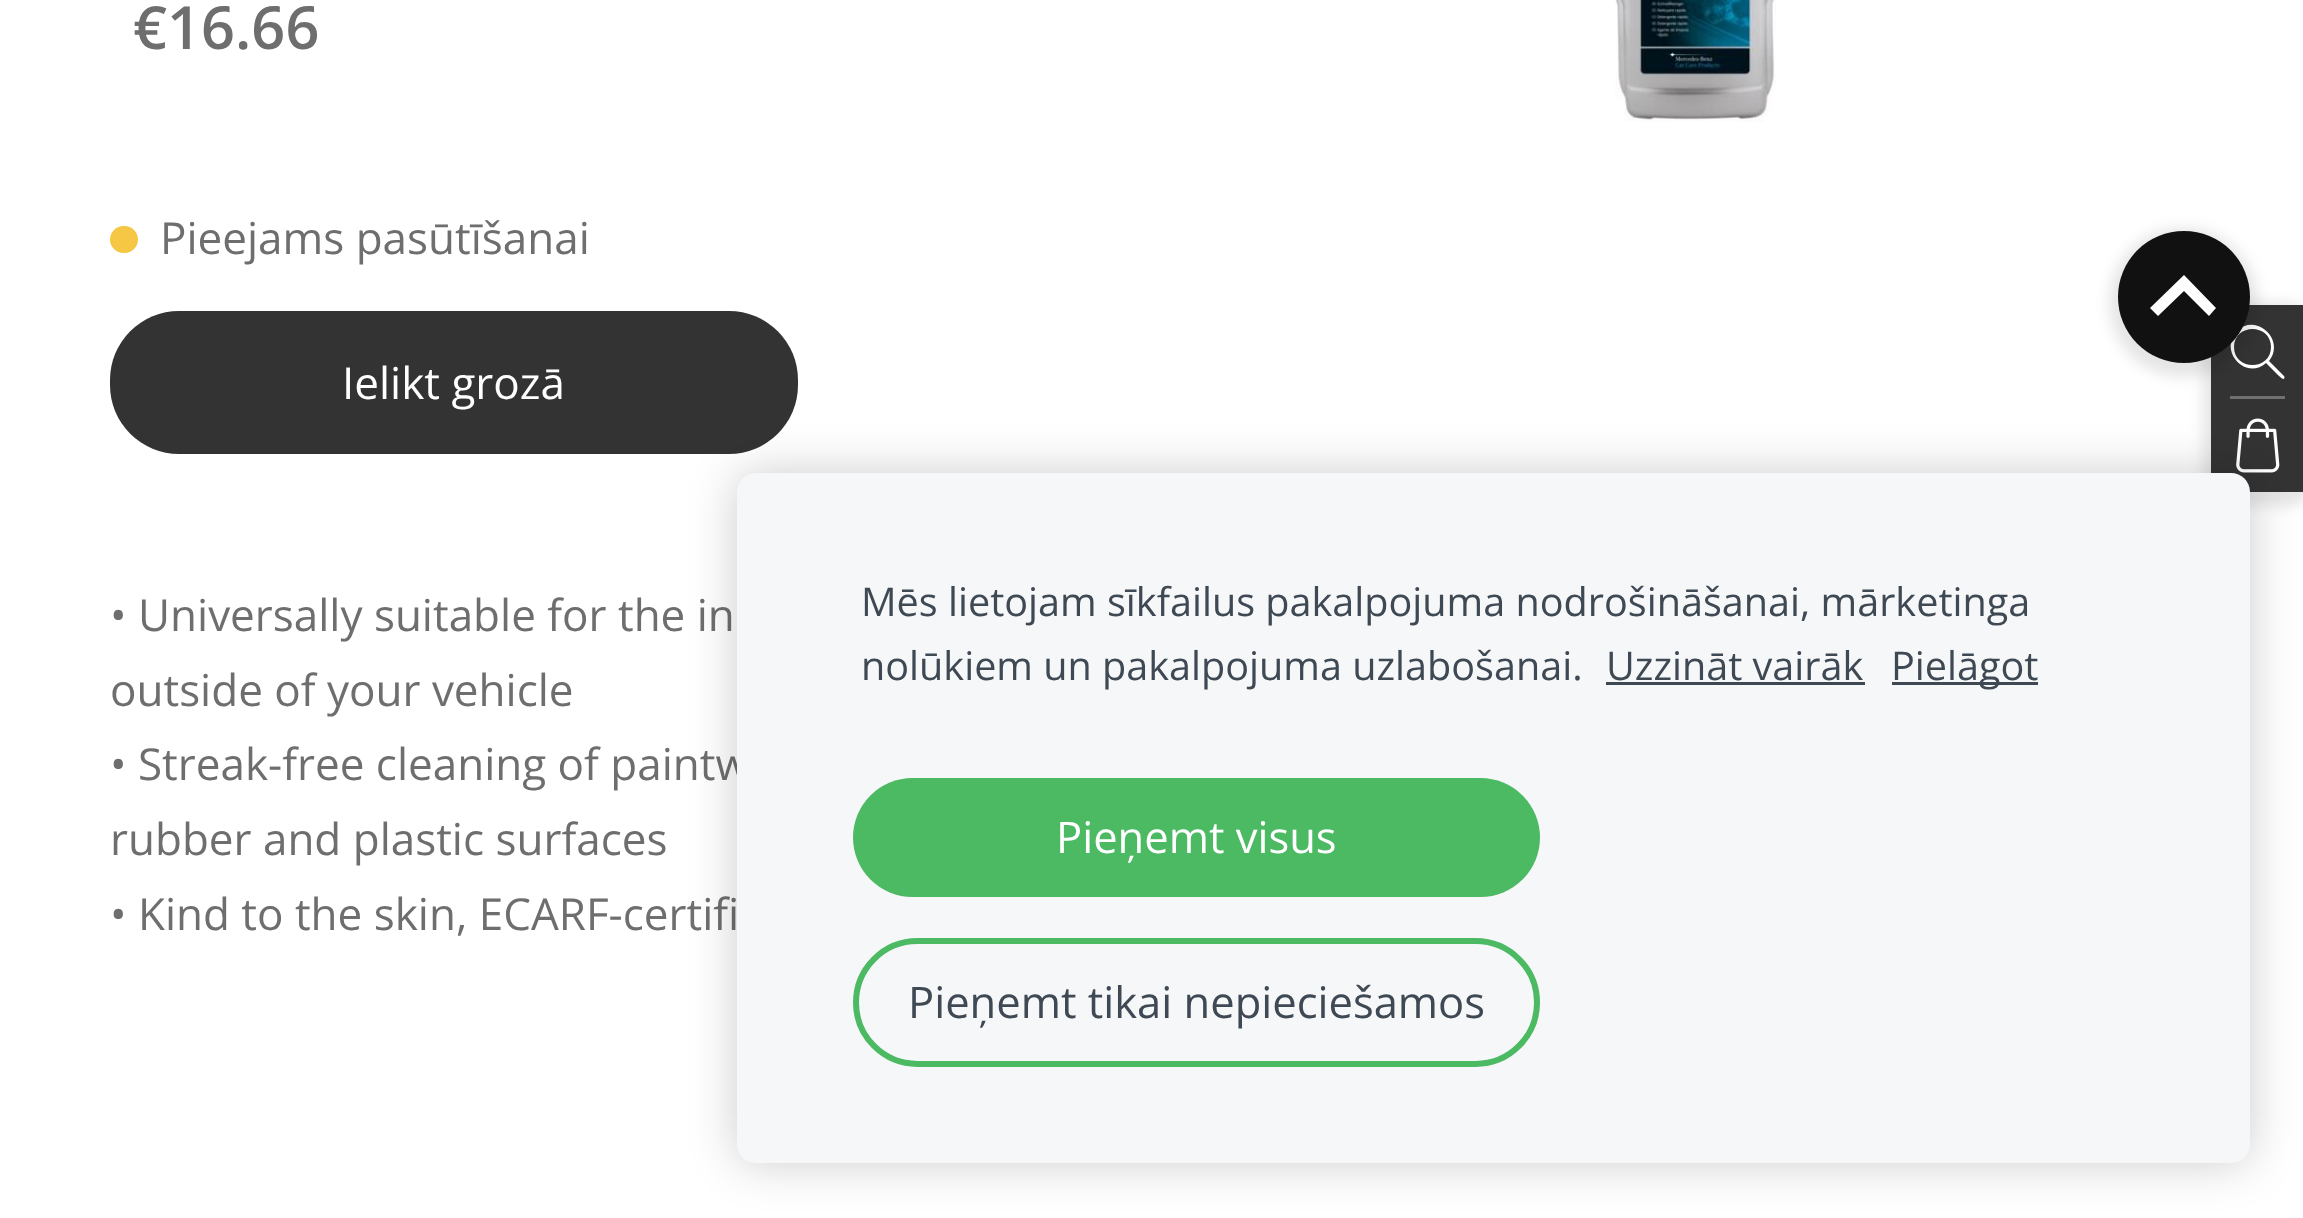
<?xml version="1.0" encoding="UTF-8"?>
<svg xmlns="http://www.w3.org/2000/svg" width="2303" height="1218">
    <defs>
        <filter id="blur1" x="-50%" y="-200%" width="200%" height="500%"><feGaussianBlur stdDeviation="7"/></filter>
        <filter id="blur2" x="-50%" y="-200%" width="200%" height="500%"><feGaussianBlur stdDeviation="23.5"/></filter>
    </defs>
    <rect width="100%" height="100%" fill="#FFFFFF"/>
    <text x="133" y="49" font-family="Open Sans" font-size="59.5" font-weight="600" fill="#6E6E6E">€16.66</text>
    <rect x="110" y="226" width="28" height="27" rx="13.5" fill="#F5C744"/>
    <text x="160" y="254" font-family="Open Sans" font-size="44" fill="#6E6E6E">Pieejams pasūtīšanai</text>
    <rect x="110" y="311" width="688" height="143" rx="69" fill="#333333"/>
    <text x="342" y="399" font-family="Open Sans" font-size="44" fill="#FFFFFF">Ielikt grozā</text>
    <text font-family="Open Sans" font-size="44" fill="#6E6E6E">
        <tspan x="110" y="631">• Universally suitable for the in</tspan>
        <tspan x="110" y="706">outside of your vehicle</tspan>
        <tspan x="110" y="780">• Streak-free cleaning of paintw</tspan>
        <tspan x="110" y="855">rubber and plastic surfaces</tspan>
        <tspan x="110" y="930">• Kind to the skin, ECARF-certifi</tspan>
    </text>
    <image x="1615" y="0" width="161" height="122" href="img_01.png"/>
    <rect x="2203" y="303" width="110" height="203" rx="25" fill="#000000" fill-opacity="0.1" filter="url(#blur1)"/>
    <rect x="2211" y="305" width="92" height="187" fill="#333333"/>
    <path d="M 2284 376 L 2269 361 C 2286 340 2256 312 2237 331 C 2218 351 2246 381 2266 363 L 2279 376 C 2285 382 2285 377 2284 376 Z M 2234 347 C 2234 323 2271 323 2271 347 C 2271 371 2234 371 2234 347 Z" fill="#FFFFFF"/>
    <rect x="2230" y="396" width="55" height="3" fill="#707070"/>
    <image x="2236" y="418" width="44" height="55" href="img_02.png"/>
    <rect x="2109" y="228" width="149" height="149" rx="74.5" fill="#000000" fill-opacity="0.1" filter="url(#blur1)"/>
    <circle cx="2184" cy="297" r="66" fill="#111111"/>
    <path d="M 2158 316 L 2184 291 L 2209 316 L 2216 308 L 2184 275 L 2150 308 Z" fill="#FFFFFF"/>
    <rect x="737" y="473" width="1513" height="690" rx="19" fill="#000000" fill-opacity="0.2" filter="url(#blur2)"/>
    <rect x="737" y="473" width="1513" height="690" rx="19" fill="#F6F7F9"/>
    <text font-family="Open Sans" font-size="39.6" fill="#3F4954">
        <tspan x="861" y="616">Mēs lietojam sīkfailus pakalpojuma nodrošināšanai, mārketinga</tspan>
        <tspan x="861" y="680">nolūkiem un pakalpojuma uzlabošanai.</tspan>
    </text>
    <text x="1606" y="680" font-family="Open Sans" font-size="39.6" fill="#3F4954">Uzzināt vairāk</text>
    <rect x="1606" y="682" width="259" height="3" fill="#3F4954"/>
    <rect x="1892" y="682" width="146" height="3" fill="#3F4954"/>
    <text x="1891" y="680" font-family="Open Sans" font-size="39.6" fill="#3F4954">Pielāgot</text>
    <rect x="853" y="778" width="687" height="119" rx="59.5" fill="#4CB963"/>
    <text x="1056" y="853" font-family="Open Sans" font-size="43.5" fill="#FFFFFF">Pieņemt visus</text>
    <rect x="856" y="941" width="681" height="123" rx="61.5" fill="none" stroke="#4CB963" stroke-width="6"/>
    <text x="908" y="1018" font-family="Open Sans" font-size="43.5" fill="#3F4954">Pieņemt tikai nepieciešamos</text>
</svg>
